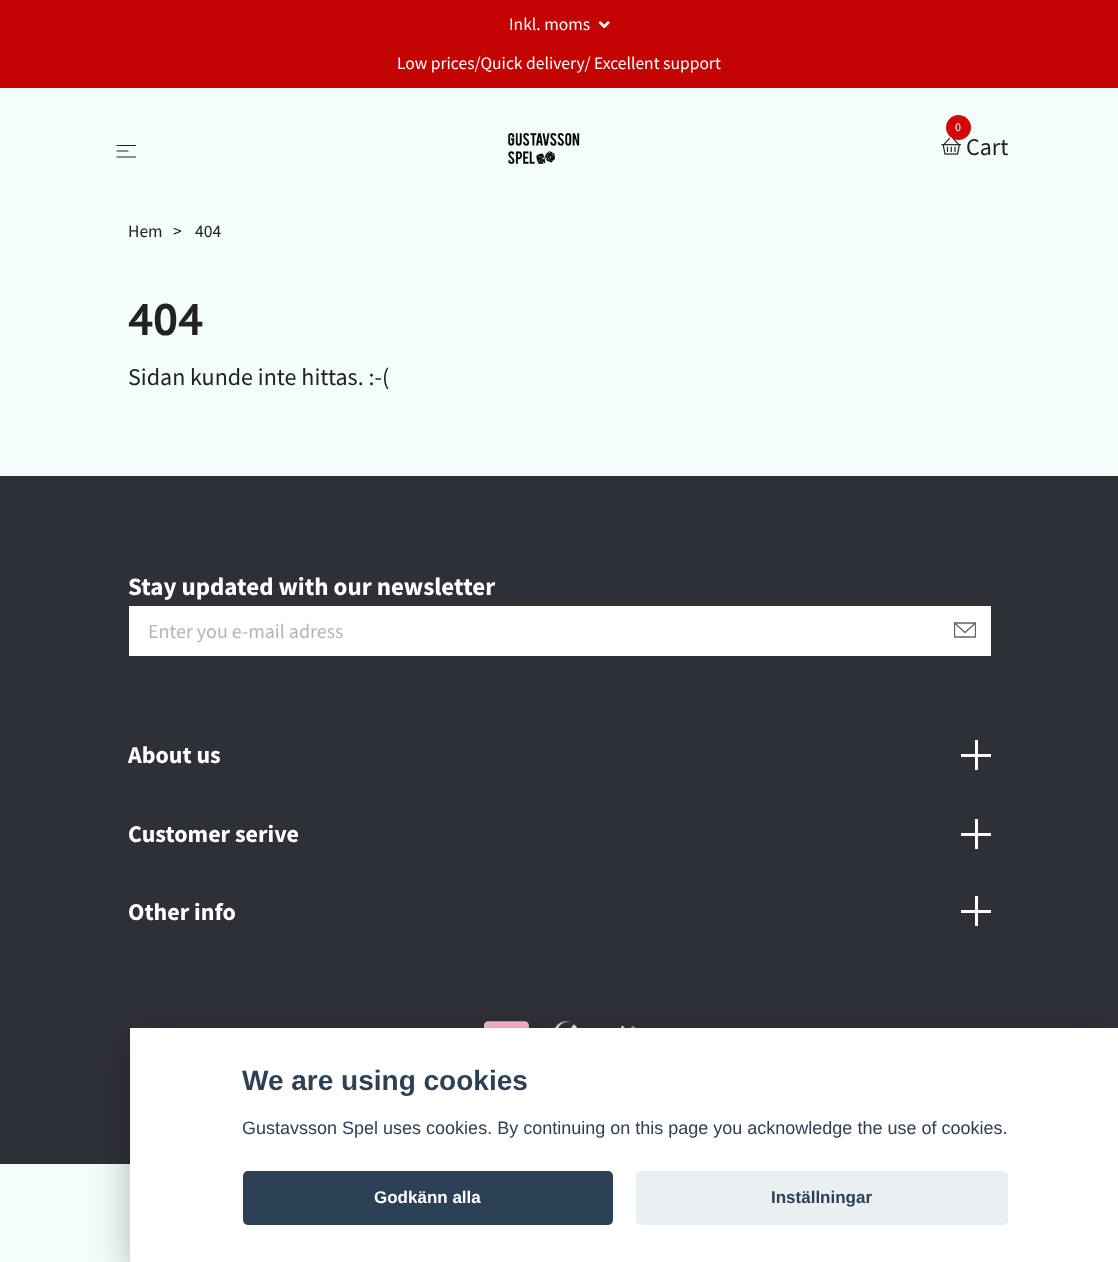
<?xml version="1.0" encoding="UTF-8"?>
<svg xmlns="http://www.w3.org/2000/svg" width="1118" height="1262">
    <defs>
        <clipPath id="clip1"><rect x="954" y="619" width="22" height="22"/></clipPath>
        <filter id="blur1" x="-50%" y="-200%" width="200%" height="500%"><feGaussianBlur stdDeviation="19"/></filter>
    </defs>
    <rect width="100%" height="100%" fill="#F2FDFC"/>
    <rect x="0" y="0" width="1118" height="88" fill="#C40303"/>
    <text x="509" y="30" font-family="Source Sans Pro" font-size="17.5" fill="#FFFFFF">Inkl. moms</text>
    <image x="598" y="21" width="12" height="8" href="img_01.png"/>
    <text x="397" y="69" font-family="Source Sans Pro" font-size="17.5" fill="#FFFFFF">Low prices/Quick delivery/ Excellent support</text>
    <path d="M 117 145.5 H 135.5 M 117 151 H 128 M 117 157 H 135.5" fill="none" stroke="#222222" stroke-width="1.2" stroke-linecap="round" stroke-linejoin="round"/>
    <image x="507" y="133" width="73" height="32" href="img_02.png"/>
    <image x="941" y="137" width="21" height="18" href="img_03.png"/>
    <text x="966" y="155" font-family="Source Sans Pro" font-size="24" fill="#222222">Cart</text>
    <circle cx="958.5" cy="127.5" r="12.5" fill="#D10909"/>
    <text x="955" y="131" font-family="Source Sans Pro" font-size="12" fill="#FFFFFF">0</text>
    <text x="128" y="237" font-family="Source Sans Pro" font-size="17.5" fill="#222222">Hem</text>
    <text x="173" y="237" font-family="Source Sans Pro" font-size="17.5" fill="#222222">&gt;</text>
    <text x="195" y="237" font-family="Source Sans Pro" font-size="17.5" fill="#222222">404</text>
    <text x="128" y="335" font-family="PT Sans" font-size="44" font-weight="700" fill="#222222">404</text>
    <text x="128" y="385" font-family="Source Sans Pro" font-size="24" fill="#222222">Sidan kunde inte hittas. :-(</text>
    <rect x="0" y="476" width="1118" height="688" fill="#2E3037"/>
    <text x="128" y="595" font-family="Source Sans Pro" font-size="25" font-weight="700" fill="#FFFFFF">Stay updated with our newsletter</text>
    <rect x="129" y="606" width="862" height="50" fill="#FFFFFF"/>
    <text x="148" y="638" font-family="Source Sans Pro" font-size="20" fill="#ADB5BD">Enter you e-mail adress</text>
    <path d="M 954.5 623 L 965 632.5 L 975.5 623" fill="none" stroke="#646464" stroke-width="1.4" stroke-linecap="round" stroke-linejoin="round"/>
    <g clip-path="url(#clip1)">
        <path d="M 954.5 623 H 975.5 V 637 H 954.5 Z" fill="none" stroke="#646464" stroke-width="1.4" stroke-linecap="round" stroke-linejoin="round"/>
    </g>
    <text x="128" y="763" font-family="Source Sans Pro" font-size="24" font-weight="700" fill="#FFFFFF">About us</text>
    <rect x="975" y="740" width="3" height="30" fill="#FFFFFF"/>
    <rect x="961" y="754" width="30" height="3" fill="#FFFFFF"/>
    <text x="128" y="842" font-family="Source Sans Pro" font-size="24" font-weight="700" fill="#FFFFFF">Customer serive</text>
    <rect x="975" y="819" width="3" height="30" fill="#FFFFFF"/>
    <rect x="961" y="833" width="30" height="3" fill="#FFFFFF"/>
    <text x="128" y="920" font-family="Source Sans Pro" font-size="24" font-weight="700" fill="#FFFFFF">Other info</text>
    <rect x="975" y="896" width="3" height="30" fill="#FFFFFF"/>
    <rect x="961" y="910" width="30" height="3" fill="#FFFFFF"/>
    <image x="484" y="1021" width="45" height="7" href="img_04.png"/>
    <image x="554" y="1021" width="81" height="7" href="img_05.png"/>
    <rect x="130" y="1040" width="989" height="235" fill="#020203" fill-opacity="0.28" filter="url(#blur1)"/>
    <rect x="130" y="1028" width="988" height="234" fill="#FFFFFF"/>
    <text x="242" y="1090" font-family="Liberation Sans" font-size="28" font-weight="700" fill="#2D4156">We are using cookies</text>
    <text x="242" y="1134" font-family="Liberation Sans" font-size="18" fill="#2D4156">Gustavsson Spel uses cookies. By continuing on this page you acknowledge the use of cookies.</text>
    <rect x="243" y="1171" width="370" height="54" rx="5" fill="#2D4156"/>
    <text x="374" y="1203" font-family="Liberation Sans" font-size="17" font-weight="700" fill="#FFFFFF">Godkänn alla</text>
    <rect x="636" y="1171" width="372" height="54" rx="5" fill="#EAEFF2"/>
    <text x="771" y="1203" font-family="Liberation Sans" font-size="17" font-weight="700" fill="#2D4156">Inställningar</text>
</svg>
